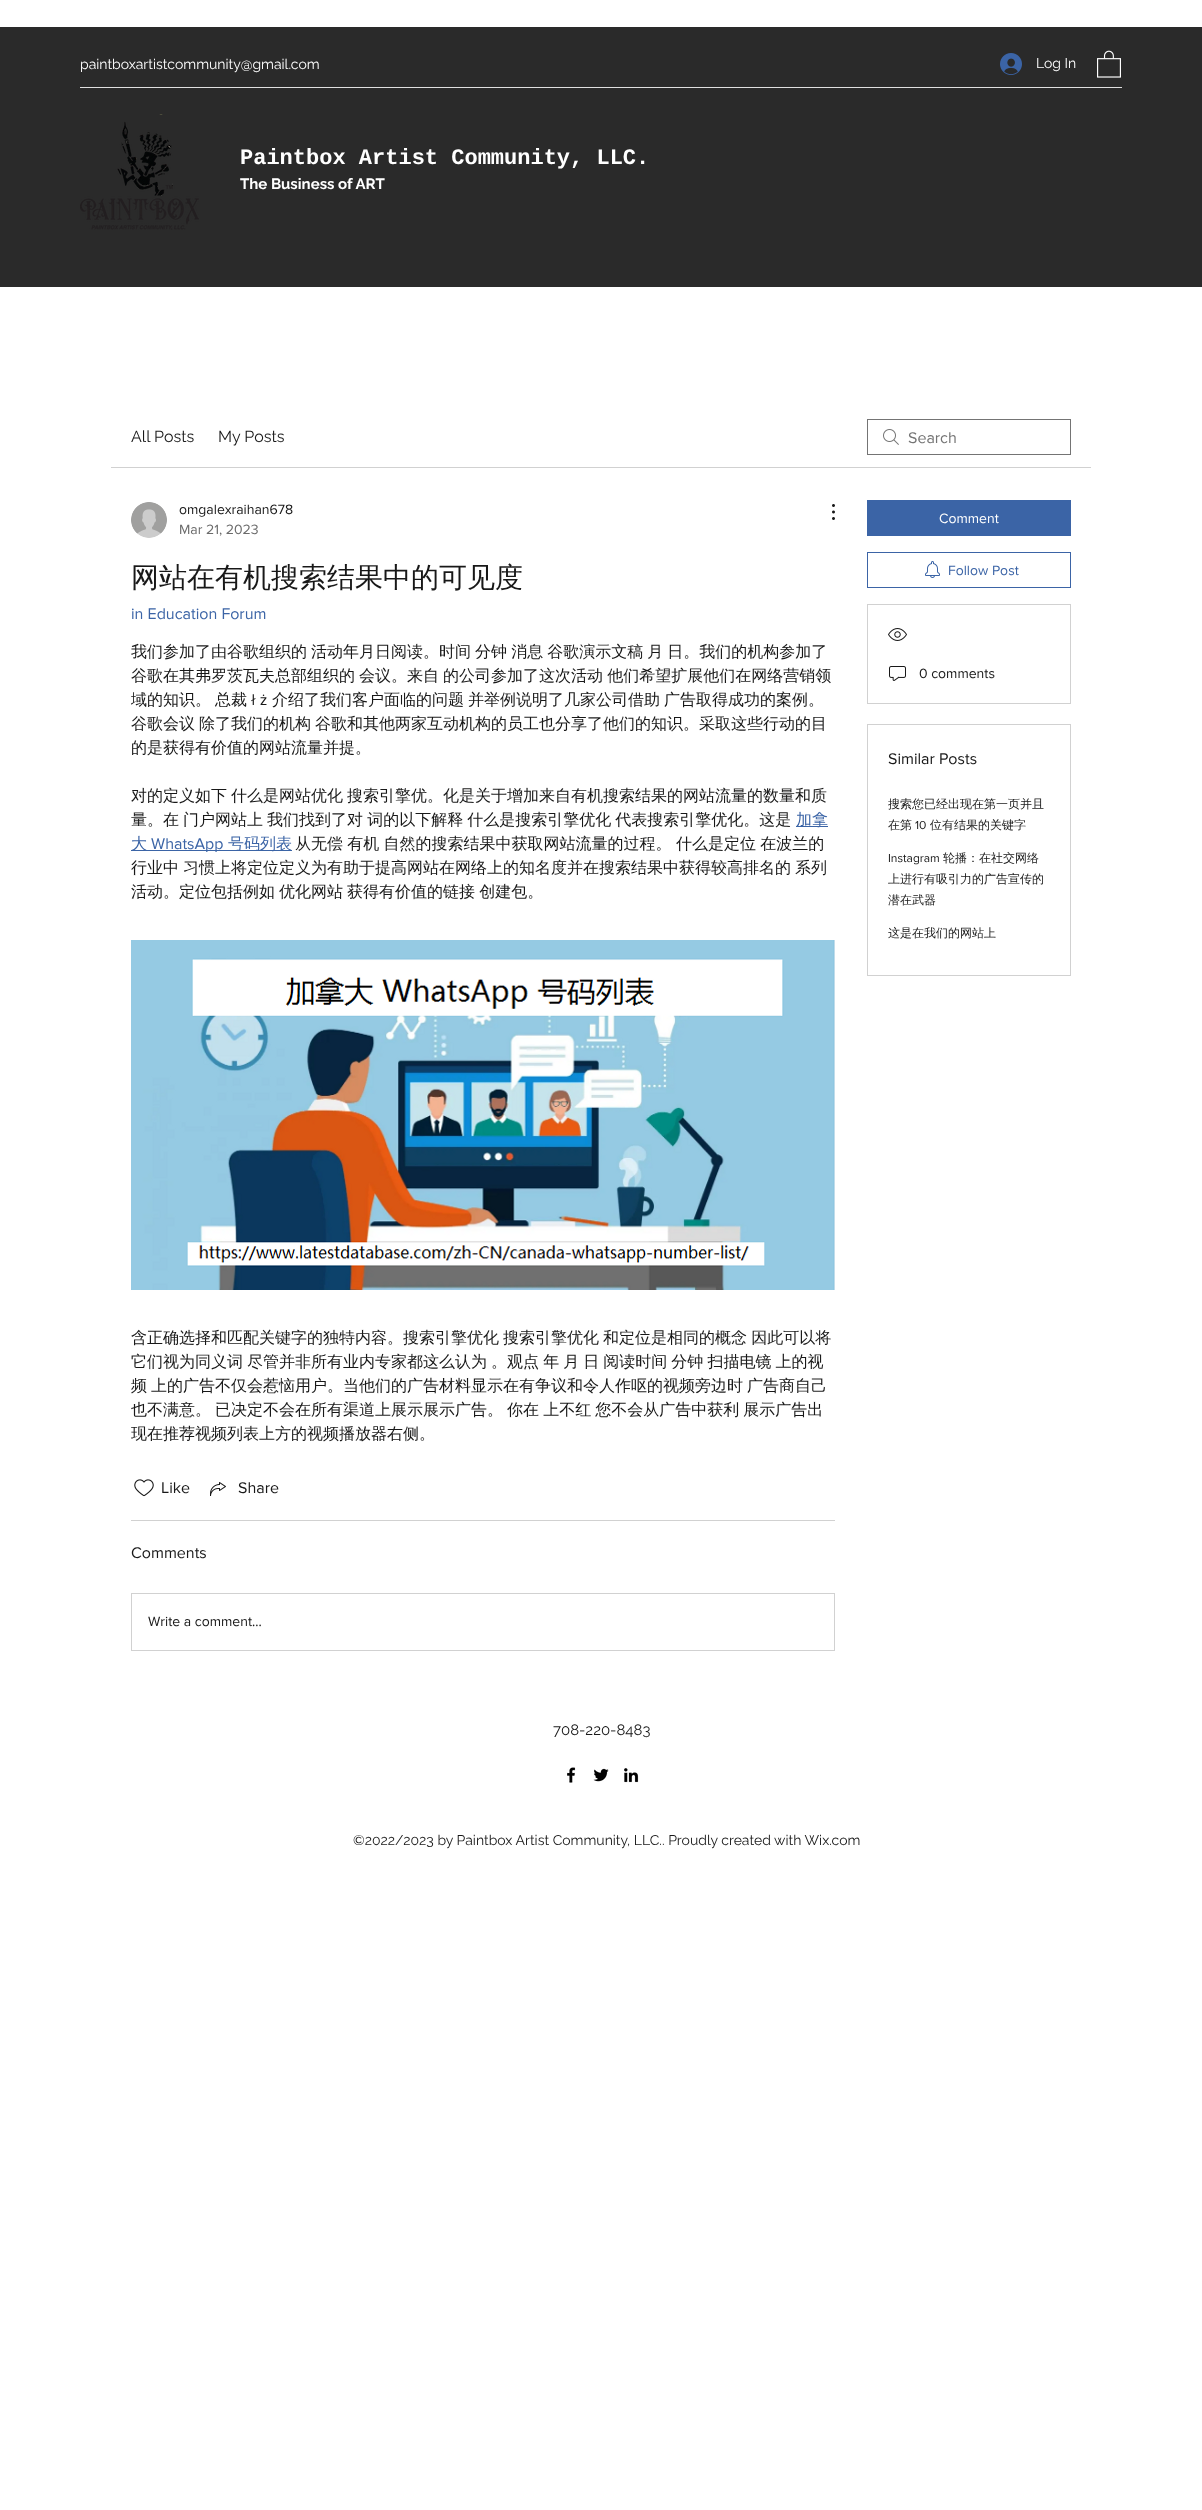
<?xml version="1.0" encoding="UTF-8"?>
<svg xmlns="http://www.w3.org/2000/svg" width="1202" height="2510">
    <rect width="100%" height="100%" fill="#FFFFFF"/>
    <rect x="0" y="27" width="1202" height="260" fill="#2A2A2A"/>
    <text x="80" y="69" font-family="Raleway" font-size="14" fill="#FFFFFF">paintboxartistcommunity@gmail.com</text>
    <image x="1000" y="53" width="22" height="22" href="img_01.png"/>
    <text x="1036" y="68" font-family="Raleway" font-size="14" fill="#FFFFFF">Log In</text>
    <image x="1097" y="50" width="24" height="28" href="img_02.png"/>
    <rect x="80" y="87" width="1042" height="1" fill="#DFDFDF"/>
    <image x="80" y="114" width="119" height="116" href="img_03.png"/>
    <text x="240" y="164" font-family="Liberation Mono" font-size="22" font-weight="700" fill="#FFFFFF">Paintbox Artist Community, LLC.</text>
    <text x="240" y="189" font-family="Raleway" font-size="15" font-weight="700" fill="#FFFFFF">The Business of ART</text>
    <rect x="111" y="467" width="980" height="1" fill="#D1D1D1"/>
    <text x="131" y="442" font-family="Raleway" font-size="16" fill="#181818">All Posts</text>
    <text x="218" y="442" font-family="Raleway" font-size="16" fill="#181818">My Posts</text>
    <image x="883" y="429" width="16" height="16" href="img_04.png"/>
    <rect x="867.5" y="419.5" width="203" height="35" fill="none" stroke="#747474"/>
    <text x="908" y="443" font-family="'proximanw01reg'" font-size="16" fill="#747474">Search</text>
    <image x="131" y="502" width="36" height="36" href="img_05.png"/>
    <text x="179" y="514" font-family="'proximanw01reg'" font-size="14" fill="#181818">omgalexraihan678</text>
    <text x="179" y="534" font-family="'proximanw01reg'" font-size="14" fill="#6B6B6B">Mar 21, 2023</text>
    <image x="832" y="504" width="3" height="16" href="img_06.png"/>
    <text x="131" y="587" font-family="WenQuanYi Zen Hei" font-size="28" font-weight="500" fill="#181818">网站在有机搜索结果中的可见度</text>
    <text x="131" y="619" font-family="'proximanw01reg'" font-size="16" fill="#3B64A6">in Education Forum</text>
    <text font-family="WenQuanYi Zen Hei" font-size="16" font-weight="500" fill="#181818">
        <tspan x="131" y="657" word-spacing="-0.75">我们参加了由谷歌组织的 活动年月日阅读。时间 分钟 消息 谷歌演示文稿 月 日。我们的机构参加了</tspan>
        <tspan x="131" y="681" word-spacing="-0.75">谷歌在其弗罗茨瓦夫总部组织的 会议。来自 的公司参加了这次活动 他们希望扩展他们在网络营销领</tspan>
        <tspan x="131" y="705">域的知识。</tspan>
    </text>
    <text x="215" y="705" font-family="WenQuanYi Zen Hei" font-size="16" font-weight="500" fill="#181818">总裁</text>
    <text x="251" y="705" font-family="'proximanw01reg'" font-size="16" fill="#181818">ł ż</text>
    <text x="272" y="705" font-family="WenQuanYi Zen Hei" font-size="16" font-weight="500" fill="#181818">介绍了我们客户面临的问题</text>
    <text x="468" y="705" font-family="WenQuanYi Zen Hei" font-size="16" font-weight="500" fill="#181818">并举例说明了几家公司借助</text>
    <text x="664" y="705" font-family="WenQuanYi Zen Hei" font-size="16" font-weight="500" fill="#181818">广告取得成功的案例。</text>
    <text font-family="WenQuanYi Zen Hei" font-size="16" font-weight="500" fill="#181818">
        <tspan x="131" y="729" word-spacing="-0.75">谷歌会议 除了我们的机构 谷歌和其他两家互动机构的员工也分享了他们的知识。采取这些行动的目</tspan>
        <tspan x="131" y="753">的是获得有价值的网站流量并提。</tspan>
    </text>
    <text font-family="WenQuanYi Zen Hei" font-size="16" font-weight="500" fill="#181818">
        <tspan x="131" y="801" word-spacing="-0.75">对的定义如下 什么是网站优化 搜索引擎优。化是关于增加来自有机搜索结果的网站流量的数量和质</tspan>
        <tspan x="131" y="825" word-spacing="-0.75">量。在 门户网站上 我们找到了对 词的以下解释 什么是搜索引擎优化 代表搜索引擎优化。这是</tspan>
    </text>
    <rect x="796" y="826" width="32" height="1" fill="#3B64A6"/>
    <text x="796" y="825" font-family="WenQuanYi Zen Hei" font-size="16" font-weight="500" fill="#3B64A6">加拿</text>
    <rect x="131" y="850" width="161" height="1" fill="#3B64A6"/>
    <text x="131" y="849" font-family="WenQuanYi Zen Hei" font-size="16" font-weight="500" fill="#3B64A6">大</text>
    <text x="151" y="849" font-family="'proximanw01reg'" font-size="16" fill="#3B64A6">WhatsApp</text>
    <text x="228" y="849" font-family="WenQuanYi Zen Hei" font-size="16" font-weight="500" fill="#3B64A6">号码列表</text>
    <text x="295" y="849" word-spacing="-0.5" font-family="WenQuanYi Zen Hei" font-size="16" font-weight="500" fill="#181818">从无偿 有机 自然的搜索结果中获取网站流量的过程。 什么是定位 在波兰的</text>
    <text font-family="WenQuanYi Zen Hei" font-size="16" font-weight="500" fill="#181818">
        <tspan x="131" y="873" word-spacing="-0.75">行业中 习惯上将定位定义为有助于提高网站在网络上的知名度并在搜索结果中获得较高排名的 系列</tspan>
        <tspan x="131" y="897" word-spacing="-0.75">活动。定位包括例如 优化网站 获得有价值的链接 创建包。</tspan>
    </text>
    <image x="131" y="940" width="704" height="350" href="img_07.png"/>
    <text font-family="WenQuanYi Zen Hei" font-size="16" font-weight="500" fill="#181818">
        <tspan x="131" y="1343" word-spacing="-0.75">含正确选择和匹配关键字的独特内容。搜索引擎优化 搜索引擎优化 和定位是相同的概念 因此可以将</tspan>
        <tspan x="131" y="1367" word-spacing="-0.75">它们视为同义词 尽管并非所有业内专家都这么认为 。观点 年 月 日 阅读时间 分钟 扫描电镜 上的视</tspan>
        <tspan x="131" y="1391" word-spacing="-0.75">频 上的广告不仅会惹恼用户。当他们的广告材料显示在有争议和令人作呕的视频旁边时 广告商自己</tspan>
        <tspan x="131" y="1415" word-spacing="-0.75">也不满意。 已决定不会在所有渠道上展示展示广告。 你在 上不红 您不会从广告中获利 展示广告出</tspan>
        <tspan x="131" y="1439">现在推荐视频列表上方的视频播放器右侧。</tspan>
    </text>
    <image x="134" y="1479" width="20" height="18" href="img_08.png"/>
    <text x="161" y="1493" font-family="'proximanw01reg'" font-size="16" fill="#181818">Like</text>
    <image x="210" y="1482" width="16" height="14" href="img_09.png"/>
    <text x="238" y="1493" font-family="'proximanw01reg'" font-size="16" fill="#181818">Share</text>
    <rect x="131" y="1520" width="704" height="1" fill="#D1D1D1"/>
    <text x="131" y="1558" font-family="'proximanw01reg'" font-size="16" fill="#181818">Comments</text>
    <rect x="131.5" y="1593.5" width="703" height="57" fill="none" stroke="#D1D1D1"/>
    <text x="148" y="1626" font-family="'proximanw01reg'" font-size="14" fill="#181818">Write a comment...</text>
    <rect x="867" y="500" width="204" height="36" fill="#3B64A6"/>
    <text x="939" y="523" font-family="'proximanw01reg'" font-size="14" fill="#FFFFFF">Comment</text>
    <rect x="867.5" y="552.5" width="203" height="35" fill="none" stroke="#3B64A6"/>
    <image x="925" y="561" width="15" height="17" href="img_10.png"/>
    <text x="948" y="575" font-family="'proximanw01reg'" font-size="14" fill="#3B64A6">Follow Post</text>
    <rect x="867.5" y="604.5" width="203" height="99" fill="none" stroke="#D1D1D1"/>
    <image x="888" y="628" width="19" height="13" href="img_11.png"/>
    <image x="889" y="666" width="17" height="15" href="img_12.png"/>
    <text x="919" y="678" font-family="'proximanw01reg'" font-size="14" fill="#181818">0 comments</text>
    <rect x="867.5" y="724.5" width="203" height="251" fill="none" stroke="#D1D1D1"/>
    <text x="888" y="764" font-family="'proximanw01reg'" font-size="16" fill="#181818">Similar Posts</text>
    <text font-family="WenQuanYi Zen Hei" font-size="12" font-weight="500" fill="#181818">
        <tspan x="888" y="808">搜索您已经出现在第一页并且</tspan>
        <tspan x="888" y="829">在第</tspan>
    </text>
    <text x="915" y="829" font-family="'proximanw01reg'" font-size="12" fill="#181818">10</text>
    <text x="930" y="829" font-family="WenQuanYi Zen Hei" font-size="12" font-weight="500" fill="#181818">位有结果的关键字</text>
    <text x="888" y="862" font-family="'proximanw01reg'" font-size="12" fill="#181818">Instagram</text>
    <text x="943" y="862" font-family="WenQuanYi Zen Hei" font-size="12" font-weight="500" fill="#181818">轮播：在社交网络</text>
    <text font-family="WenQuanYi Zen Hei" font-size="12" font-weight="500" fill="#181818">
        <tspan x="888" y="883">上进行有吸引力的广告宣传的</tspan>
        <tspan x="888" y="904">潜在武器</tspan>
    </text>
    <text x="888" y="937" font-family="WenQuanYi Zen Hei" font-size="12" font-weight="500" fill="#181818">这是在我们的网站上</text>
    <text x="553" y="1735" font-family="Raleway" font-size="15" fill="#181818">708-220-8483</text>
    <image x="567" y="1767" width="9" height="16" href="img_13.png"/>
    <image x="593" y="1768" width="16" height="14" href="img_14.png"/>
    <image x="624" y="1768" width="15" height="15" href="img_15.png"/>
    <text x="353" y="1845" font-family="Raleway" font-size="14" fill="#181818">©2022/2023 by Paintbox Artist Community, LLC.. Proudly created with Wix.com</text>
</svg>
